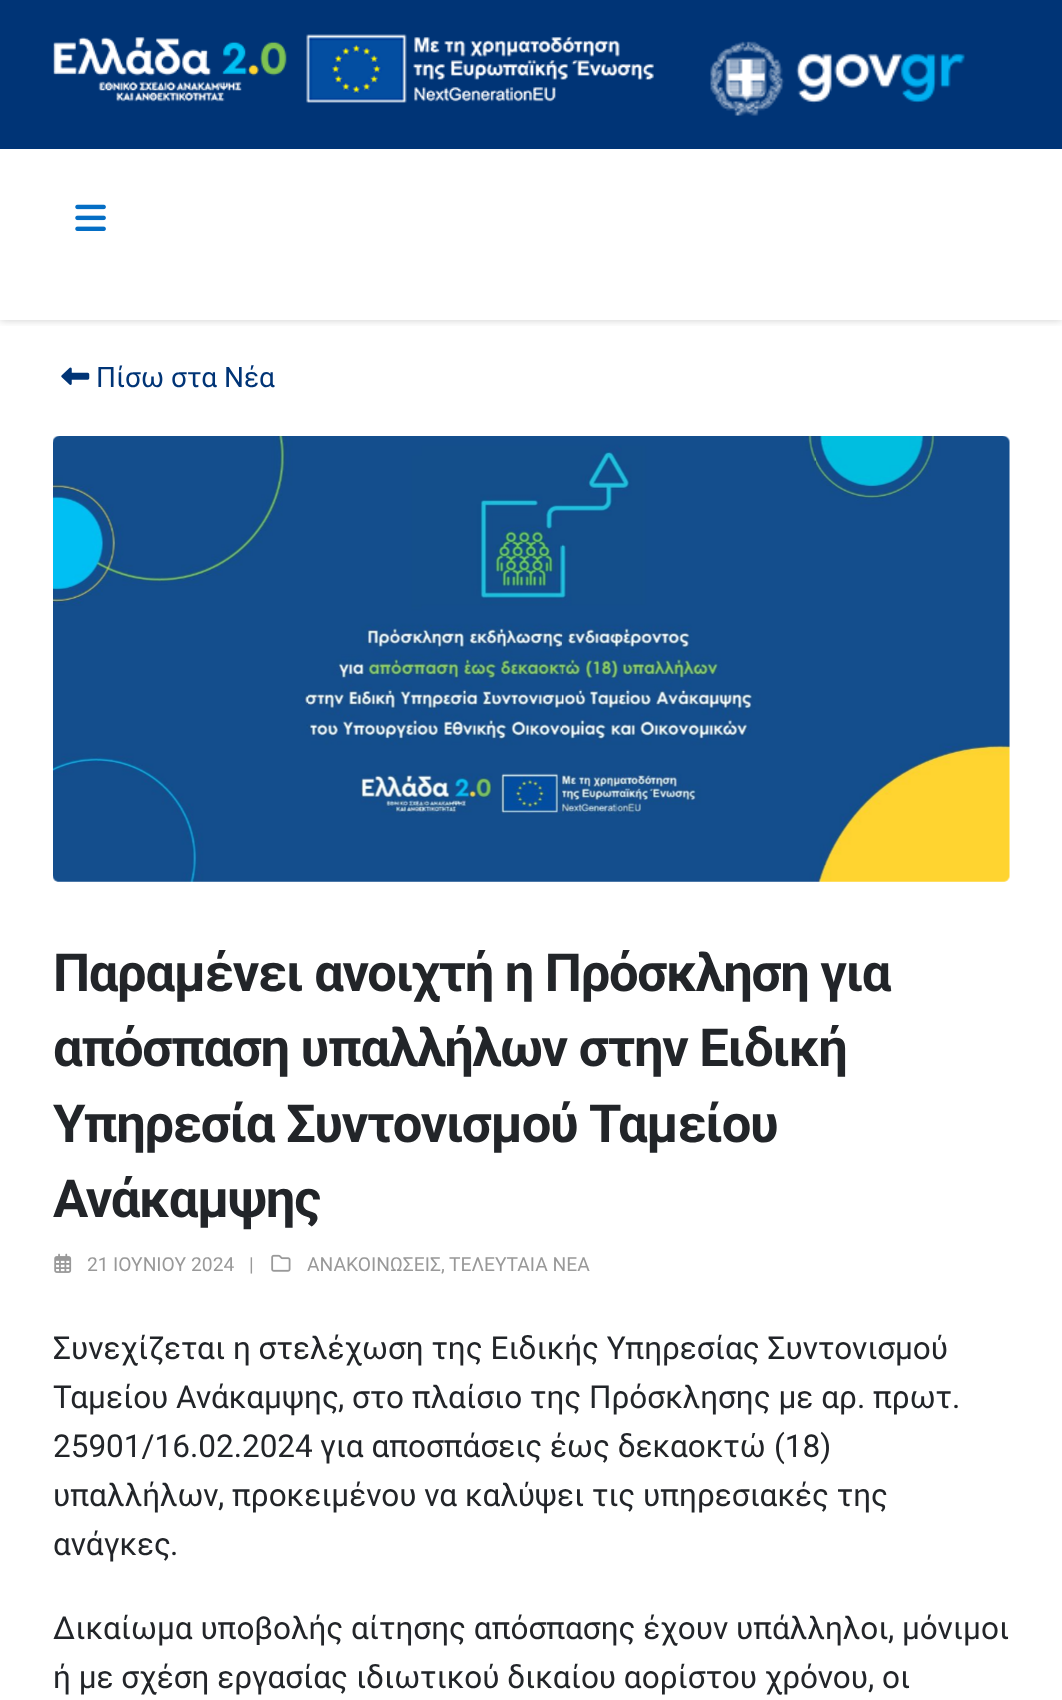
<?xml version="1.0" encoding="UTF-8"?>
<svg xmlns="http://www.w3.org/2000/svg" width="1062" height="1700">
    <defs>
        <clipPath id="clip1"><rect x="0" y="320" width="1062" height="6"/></clipPath>
        <filter id="blur1" x="-50%" y="-200%" width="200%" height="500%"><feGaussianBlur stdDeviation="4.5"/></filter>
    </defs>
    <rect width="100%" height="100%" fill="#FFFFFF"/>
    <g clip-path="url(#clip1)">
        <rect x="0" y="0" width="1062" height="320" fill="#000000" fill-opacity="0.2" filter="url(#blur1)"/>
    </g>
    <rect x="0" y="0" width="1062" height="149" fill="#003476"/>
    <image x="53" y="34" width="601" height="69" href="img_01.png"/>
    <image x="710" y="41" width="255" height="75" href="img_02.png"/>
    <image x="75" y="204" width="31" height="27" href="img_03.png"/>
    <image x="61" y="367" width="29" height="18" href="img_04.png"/>
    <text x="96" y="387" font-family="Roboto" font-size="28" fill="#003476">Πίσω στα Νέα</text>
    <image x="53" y="436" width="957" height="446" href="img_05.png"/>
    <text font-family="Roboto" font-size="52.5" font-weight="700" letter-spacing="-1.3" fill="#222529">
        <tspan x="53" y="991">Παραμένει ανοιχτή η Πρόσκληση για</tspan>
        <tspan x="53" y="1066">απόσπαση υπαλλήλων στην Ειδική</tspan>
        <tspan x="53" y="1142">Υπηρεσία Συντονισμού Ταμείου</tspan>
        <tspan x="53" y="1217">Ανάκαμψης</tspan>
    </text>
    <image x="54" y="1253" width="18" height="20" href="img_06.png"/>
    <text x="87" y="1271" font-family="'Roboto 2'" font-size="19.25" fill="#999999">21</text>
    <text x="113" y="1271" font-family="Roboto" font-size="19.25" fill="#999999">ΙΟΥΝΙΟΥ</text>
    <text x="191" y="1271" font-family="'Roboto 2'" font-size="19.25" fill="#999999">2024</text>
    <text x="249" y="1271" font-family="'Roboto 2'" font-size="19.25" fill="#999999">|</text>
    <image x="271" y="1254" width="20" height="18" href="img_07.png"/>
    <text x="307" y="1271" font-family="Roboto" font-size="19.25" fill="#999999">ΑΝΑΚΟΙΝΩΣΕΙΣ</text>
    <text x="441" y="1271" font-family="'Roboto 2'" font-size="19.25" fill="#999999">,</text>
    <text x="449" y="1271" font-family="Roboto" font-size="19.25" fill="#999999">ΤΕΛΕΥΤΑΙΑ ΝΕΑ</text>
    <text font-family="Roboto" font-size="31.5" fill="#222529">
        <tspan x="53" y="1359">Συνεχίζεται η στελέχωση της Ειδικής Υπηρεσίας Συντονισμού</tspan>
        <tspan x="53" y="1408">Ταμείου Ανάκαμψης</tspan>
    </text>
    <text x="338" y="1408" font-family="'Roboto 2'" font-size="31.5" fill="#222529">,</text>
    <text x="352" y="1408" font-family="Roboto" font-size="31.5" fill="#222529">στο πλαίσιο της Πρόσκλησης με αρ</text>
    <text x="857" y="1408" font-family="'Roboto 2'" font-size="31.5" fill="#222529">.</text>
    <text x="873" y="1408" font-family="Roboto" font-size="31.5" fill="#222529">πρωτ</text>
    <text x="952" y="1408" font-family="'Roboto 2'" font-size="31.5" fill="#222529">.</text>
    <text x="53" y="1457" font-family="'Roboto 2'" font-size="31.5" fill="#222529">25901/16.02.2024</text>
    <text x="320" y="1457" font-family="Roboto" font-size="31.5" fill="#222529">για αποσπάσεις έως δεκαοκτώ</text>
    <text x="774" y="1457" font-family="'Roboto 2'" font-size="31.5" fill="#222529">(18)</text>
    <text x="53" y="1506" font-family="Roboto" font-size="31.5" fill="#222529">υπαλλήλων</text>
    <text x="218" y="1506" font-family="'Roboto 2'" font-size="31.5" fill="#222529">,</text>
    <text x="232" y="1506" font-family="Roboto" font-size="31.5" fill="#222529">προκειμένου να καλύψει τις υπηρεσιακές της</text>
    <text x="53" y="1555" font-family="Roboto" font-size="31.5" fill="#222529">ανάγκες</text>
    <text x="170" y="1555" font-family="'Roboto 2'" font-size="31.5" fill="#222529">.</text>
    <text x="53" y="1639" font-family="Roboto" font-size="31.5" fill="#222529">Δικαίωμα υποβολής αίτησης απόσπασης έχουν υπάλληλοι</text>
    <text x="888" y="1639" font-family="'Roboto 2'" font-size="31.5" fill="#222529">,</text>
    <text x="902" y="1639" font-family="Roboto" font-size="31.5" fill="#222529">μόνιμοι</text>
    <text x="53" y="1688" font-family="Roboto" font-size="31.5" fill="#222529">ή με σχέση εργασίας ιδιωτικού δικαίου αορίστου χρόνου</text>
    <text x="868" y="1688" font-family="'Roboto 2'" font-size="31.5" fill="#222529">,</text>
    <text x="882" y="1688" font-family="Roboto" font-size="31.5" fill="#222529">οι</text>
</svg>
